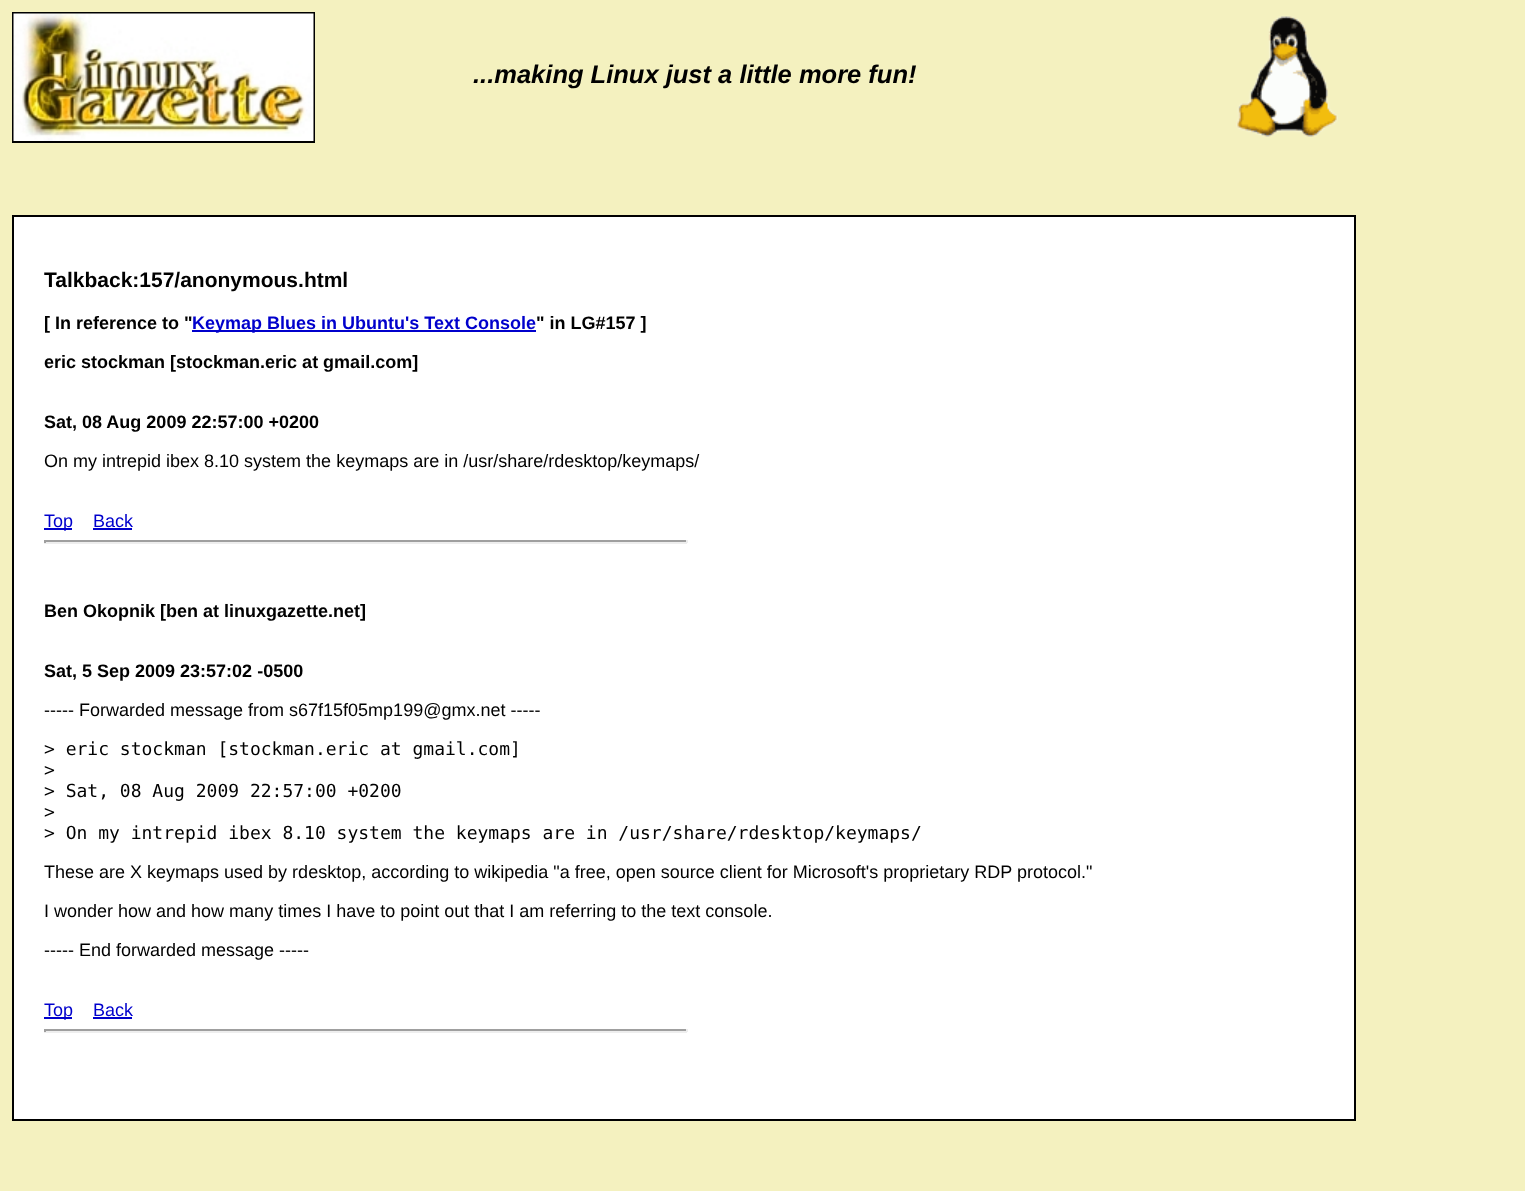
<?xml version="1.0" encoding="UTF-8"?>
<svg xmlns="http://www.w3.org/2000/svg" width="1525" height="1191">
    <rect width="100%" height="100%" fill="#F4F1BF"/>
    <rect x="13" y="13" width="301" height="129" fill="none" stroke="#000000" stroke-width="2"/>
    <image x="13" y="13" width="301" height="128" href="img_01.png"/>
    <text x="473" y="83" font-family="Liberation Sans" font-size="25.5" font-weight="700" font-style="italic" fill="#000000">...making Linux just a little more fun!</text>
    <image x="1236" y="15" width="102" height="122" href="img_02.png"/>
    <rect x="13" y="216" width="1342" height="904" fill="#FFFFFF" stroke="#000000" stroke-width="2"/>
    <text x="44" y="287" font-family="Liberation Sans" font-size="21" font-weight="700" fill="#000000">Talkback:157/anonymous.html</text>
    <text x="44" y="329" font-family="Liberation Sans" font-size="18" font-weight="700" fill="#000000">[ In reference to "</text>
    <rect x="192" y="330" width="344" height="2" fill="#0000CC"/>
    <text x="192" y="329" font-family="Liberation Sans" font-size="18" font-weight="700" fill="#0000CC">Keymap Blues in Ubuntu's Text Console</text>
    <text x="536" y="329" font-family="Liberation Sans" font-size="18" font-weight="700" fill="#000000">" in LG#157 ]</text>
    <text x="44" y="368" font-family="Liberation Sans" font-size="18" font-weight="700" fill="#000000">eric stockman [stockman.eric at gmail.com]</text>
    <text x="44" y="428" font-family="Liberation Sans" font-size="18" font-weight="700" fill="#000000">Sat, 08 Aug 2009 22:57:00 +0200</text>
    <text x="44" y="467" font-family="Liberation Sans" font-size="18" fill="#000000">On my intrepid ibex 8.10 system the keymaps are in /usr/share/rdesktop/keymaps/</text>
    <rect x="44" y="528" width="28" height="2" fill="#0000CC"/>
    <text x="44" y="527" font-family="Liberation Sans" font-size="18" fill="#0000CC">Top</text>
    <text x="93" y="527" font-family="Liberation Sans" font-size="18" fill="#0000CC">Back</text>
    <rect x="93" y="528" width="39" height="2" fill="#0000CC"/>
    <rect x="44" y="540" width="643" height="2" fill="#9F9F9F"/>
    <rect x="686" y="540" width="2" height="3" fill="#EEEEEE"/>
    <rect x="44" y="542" width="643" height="2" fill="#EEEEEE"/>
    <rect x="44" y="540" width="2" height="3" fill="#9F9F9F"/>
    <text x="44" y="617" font-family="Liberation Sans" font-size="18" font-weight="700" fill="#000000">Ben Okopnik [ben at linuxgazette.net]</text>
    <text x="44" y="677" font-family="Liberation Sans" font-size="18" font-weight="700" fill="#000000">Sat, 5 Sep 2009 23:57:02 -0500</text>
    <text x="44" y="716" font-family="Liberation Sans" font-size="18" fill="#000000">----- Forwarded message from s67f15f05mp199@gmx.net -----</text>
    <text font-family="DejaVu Sans Mono" font-size="18" fill="#000000">
        <tspan x="44" y="755">&gt; eric stockman [stockman.eric at gmail.com]</tspan>
        <tspan x="44" y="776">&gt;</tspan>
        <tspan x="44" y="797">&gt; Sat, 08 Aug 2009 22:57:00 +0200</tspan>
        <tspan x="44" y="818">&gt;</tspan>
        <tspan x="44" y="839">&gt; On my intrepid ibex 8.10 system the keymaps are in /usr/share/rdesktop/keymaps/</tspan>
    </text>
    <text x="44" y="878" font-family="Liberation Sans" font-size="18" fill="#000000">These are X keymaps used by rdesktop, according to wikipedia "a free, open source client for Microsoft's proprietary RDP protocol."</text>
    <text x="44" y="917" font-family="Liberation Sans" font-size="18" fill="#000000">I wonder how and how many times I have to point out that I am referring to the text console.</text>
    <text x="44" y="956" font-family="Liberation Sans" font-size="18" fill="#000000">----- End forwarded message -----</text>
    <rect x="44" y="1017" width="28" height="2" fill="#0000CC"/>
    <text x="44" y="1016" font-family="Liberation Sans" font-size="18" fill="#0000CC">Top</text>
    <text x="93" y="1016" font-family="Liberation Sans" font-size="18" fill="#0000CC">Back</text>
    <rect x="93" y="1017" width="39" height="2" fill="#0000CC"/>
    <rect x="44" y="1029" width="643" height="2" fill="#9F9F9F"/>
    <rect x="686" y="1029" width="2" height="3" fill="#EEEEEE"/>
    <rect x="44" y="1031" width="643" height="2" fill="#EEEEEE"/>
    <rect x="44" y="1029" width="2" height="3" fill="#9F9F9F"/>
</svg>
